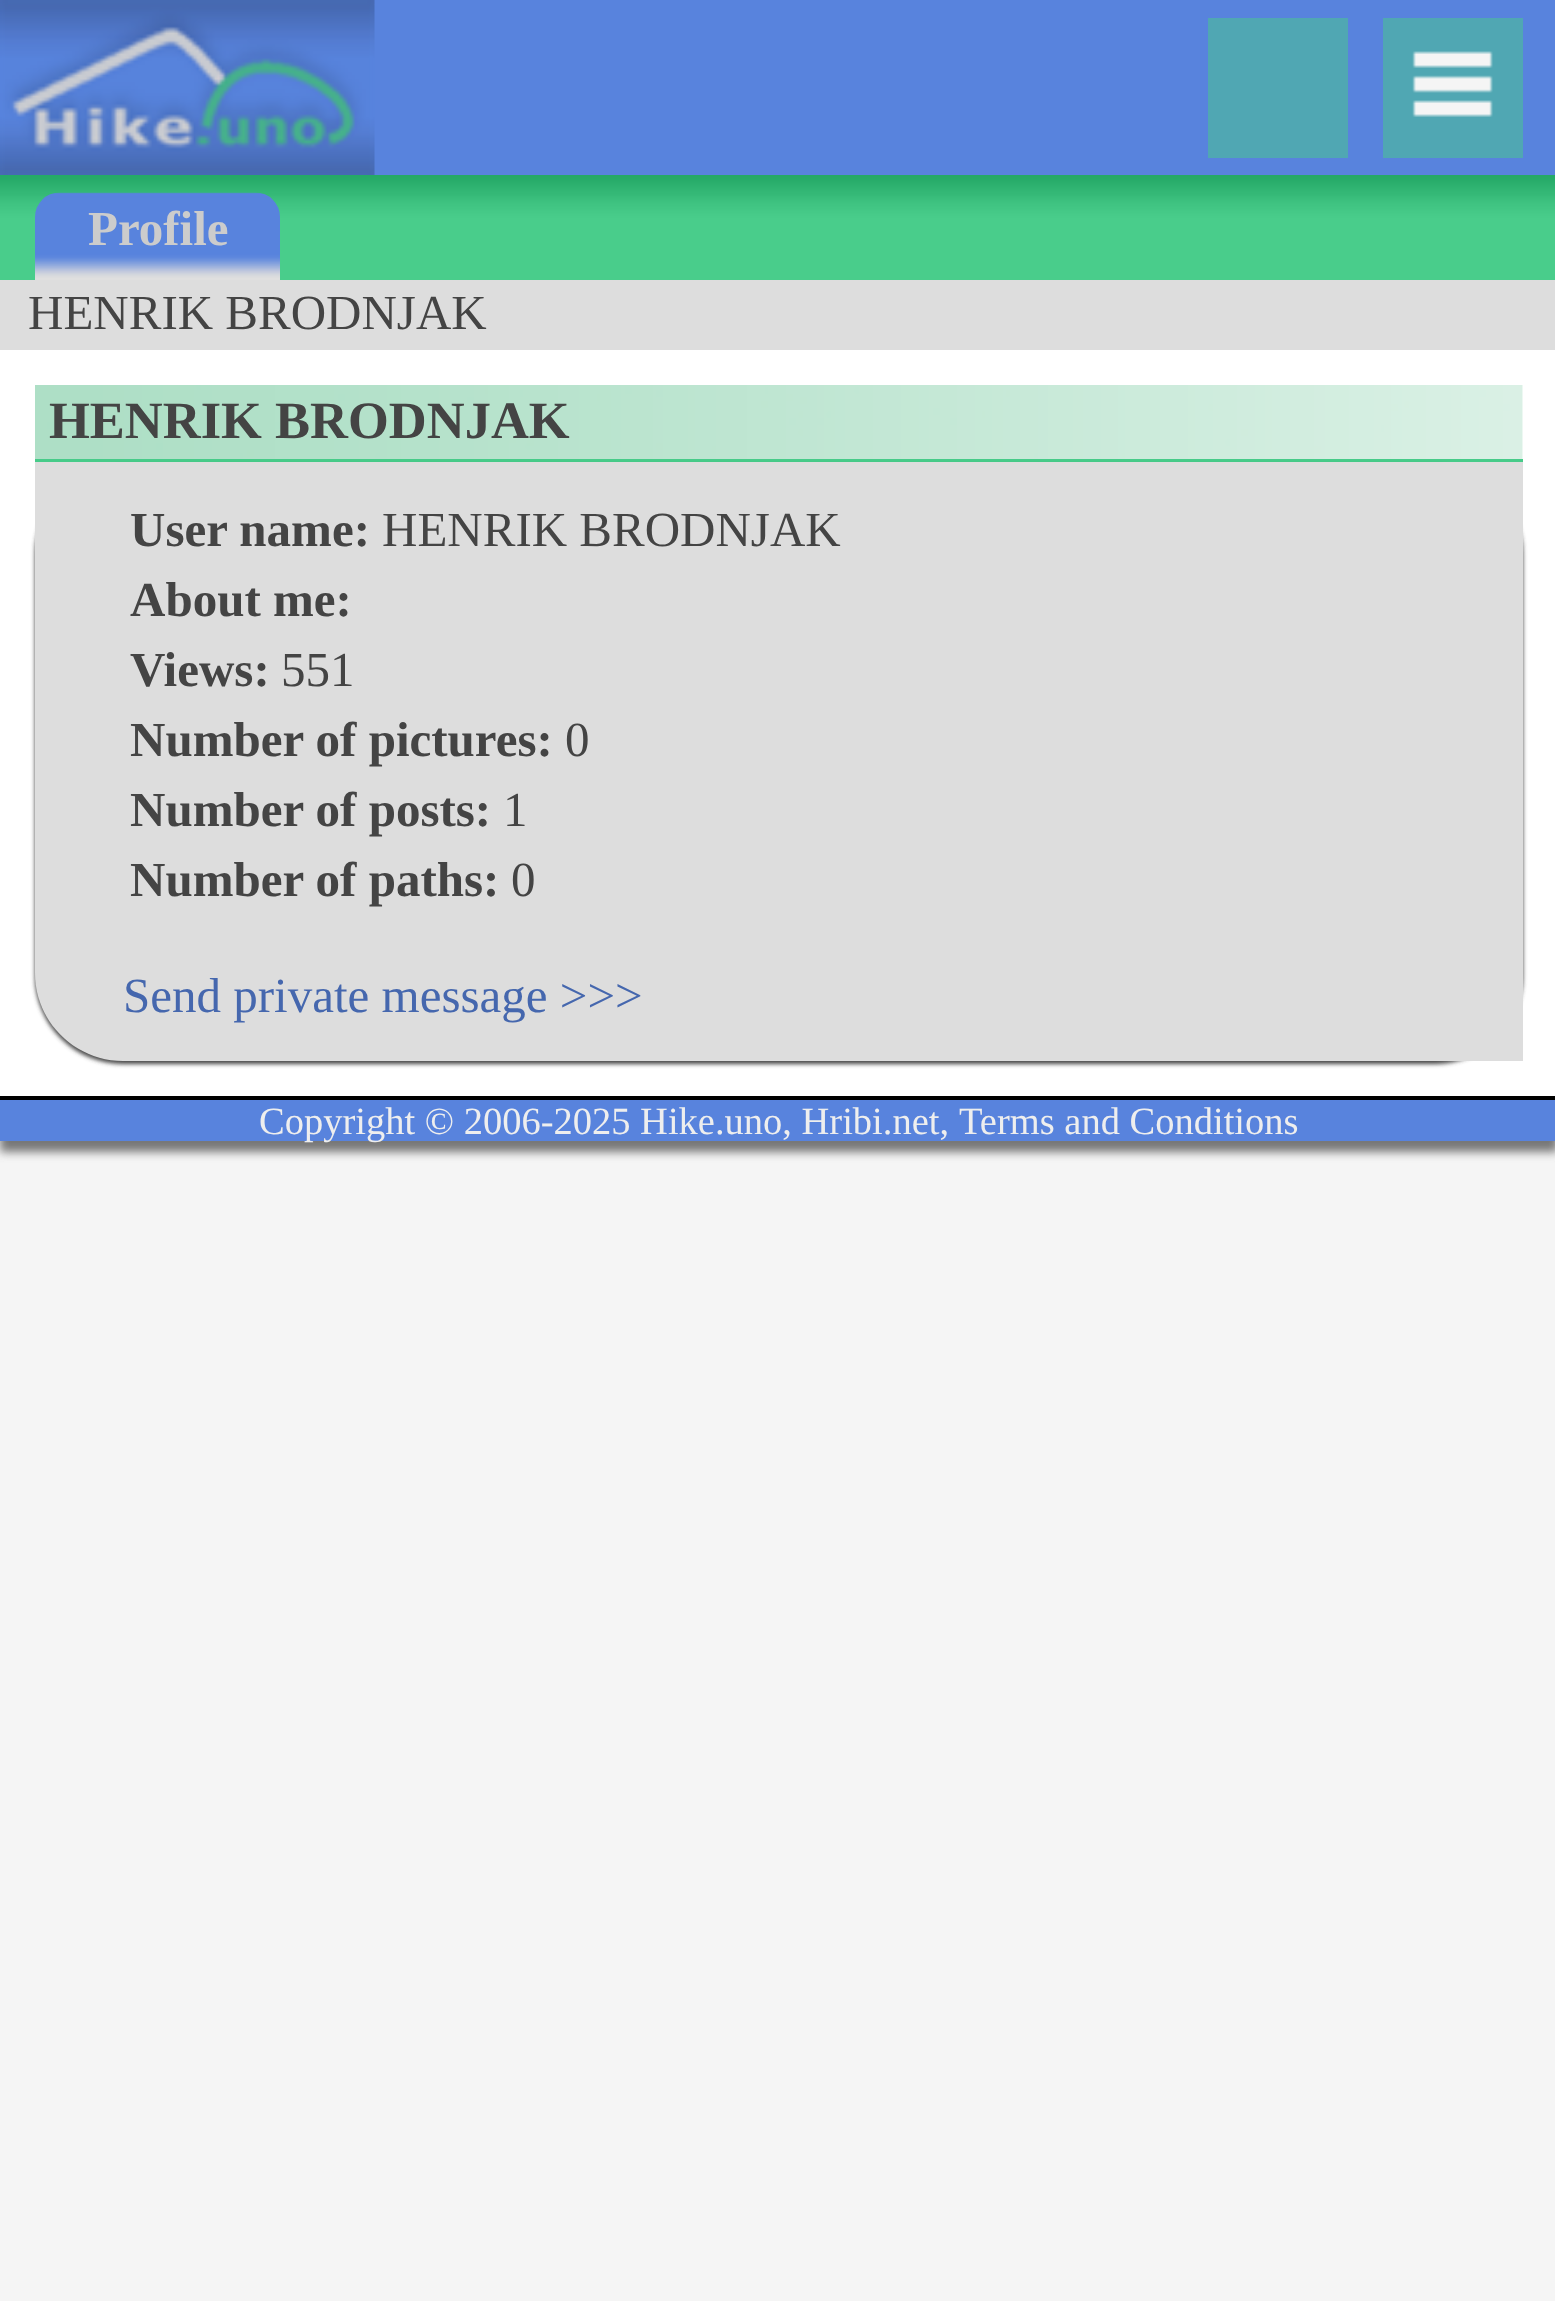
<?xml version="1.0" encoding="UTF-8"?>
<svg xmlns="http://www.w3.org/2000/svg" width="1555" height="2301">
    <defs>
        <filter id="blur1" x="-50%" y="-200%" width="200%" height="500%"><feGaussianBlur stdDeviation="5"/></filter>
        <filter id="blur2" x="-50%" y="-200%" width="200%" height="500%"><feGaussianBlur stdDeviation="2"/></filter>
    </defs>
    <rect width="100%" height="100%" fill="#F5F5F5"/>
    <rect x="0" y="0" width="1555" height="175" fill="#5883DD"/>
    <image x="0" y="0" width="375" height="175" href="img_01.png"/>
    <rect x="1208" y="18" width="140" height="140" fill="#50A7B3"/>
    <rect x="1383" y="18" width="140" height="140" fill="#50A7B3"/>
    <image x="1412" y="51" width="81" height="66" href="img_02.png"/>
    <rect x="0" y="291" width="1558" height="861" fill="#777777" filter="url(#blur1)"/>
    <image x="0" y="175" width="1555" height="105" href="img_03.png"/>
    <image x="35" y="192" width="245" height="88" href="img_04.png"/>
    <text x="88" y="245" font-family="Liberation Serif" font-size="49" font-weight="700" fill="#CCCCCC">Profile</text>
    <rect x="0" y="350" width="1555" height="746" fill="#FFFFFF"/>
    <rect x="0" y="280" width="1555" height="70" fill="#DDDDDD"/>
    <text x="28" y="329" font-family="Liberation Serif" font-size="49" fill="#444444">HENRIK BRODNJAK</text>
    <image x="35" y="385" width="1488" height="74" href="img_05.png"/>
    <rect x="35" y="459" width="1488" height="3" fill="#47CB89"/>
    <text x="49" y="438" font-family="Liberation Serif" font-size="52.5" font-weight="700" fill="#444444">HENRIK BRODNJAK</text>
    <rect x="35" y="466" width="1488" height="598" rx="88" fill="#444444" filter="url(#blur2)"/>
    <path d="M 35 462 H 1523 V 1061 H 123 C 74.5 1061 35 1021.5 35 973 Z" fill="#DDDDDD"/>
    <text x="130" y="546" font-family="Liberation Serif" font-size="49" font-weight="700" fill="#444444">User name:</text>
    <text x="382" y="546" font-family="Liberation Serif" font-size="49" fill="#444444">HENRIK BRODNJAK</text>
    <text font-family="Liberation Serif" font-size="49" font-weight="700" fill="#444444">
        <tspan x="130" y="616">About me:</tspan>
        <tspan x="130" y="686">Views:</tspan>
    </text>
    <text x="281" y="686" font-family="Liberation Serif" font-size="49" fill="#444444">551</text>
    <text x="130" y="756" font-family="Liberation Serif" font-size="49" font-weight="700" fill="#444444">Number of pictures:</text>
    <text x="565" y="756" font-family="Liberation Serif" font-size="49" fill="#444444">0</text>
    <text x="130" y="826" font-family="Liberation Serif" font-size="49" font-weight="700" fill="#444444">Number of posts:</text>
    <text x="503" y="826" font-family="Liberation Serif" font-size="49" fill="#444444">1</text>
    <text x="130" y="896" font-family="Liberation Serif" font-size="49" font-weight="700" fill="#444444">Number of paths:</text>
    <text x="511" y="896" font-family="Liberation Serif" font-size="49" fill="#444444">0</text>
    <text x="123" y="1012" font-family="Liberation Serif" font-size="49" fill="#4567AE">Send private message &gt;&gt;&gt;</text>
    <rect x="0" y="1100" width="1555" height="41" fill="#5883DD"/>
    <rect x="0" y="1096" width="1555" height="4" fill="#000000"/>
    <text x="259" y="1134" font-family="Liberation Serif" font-size="38.5" fill="#EEEEEE">Copyright © 2006-2025 Hike.uno, Hribi.net,</text>
    <text x="959" y="1134" font-family="Liberation Serif" font-size="38.5" fill="#EEEEEE">Terms and Conditions</text>
</svg>
